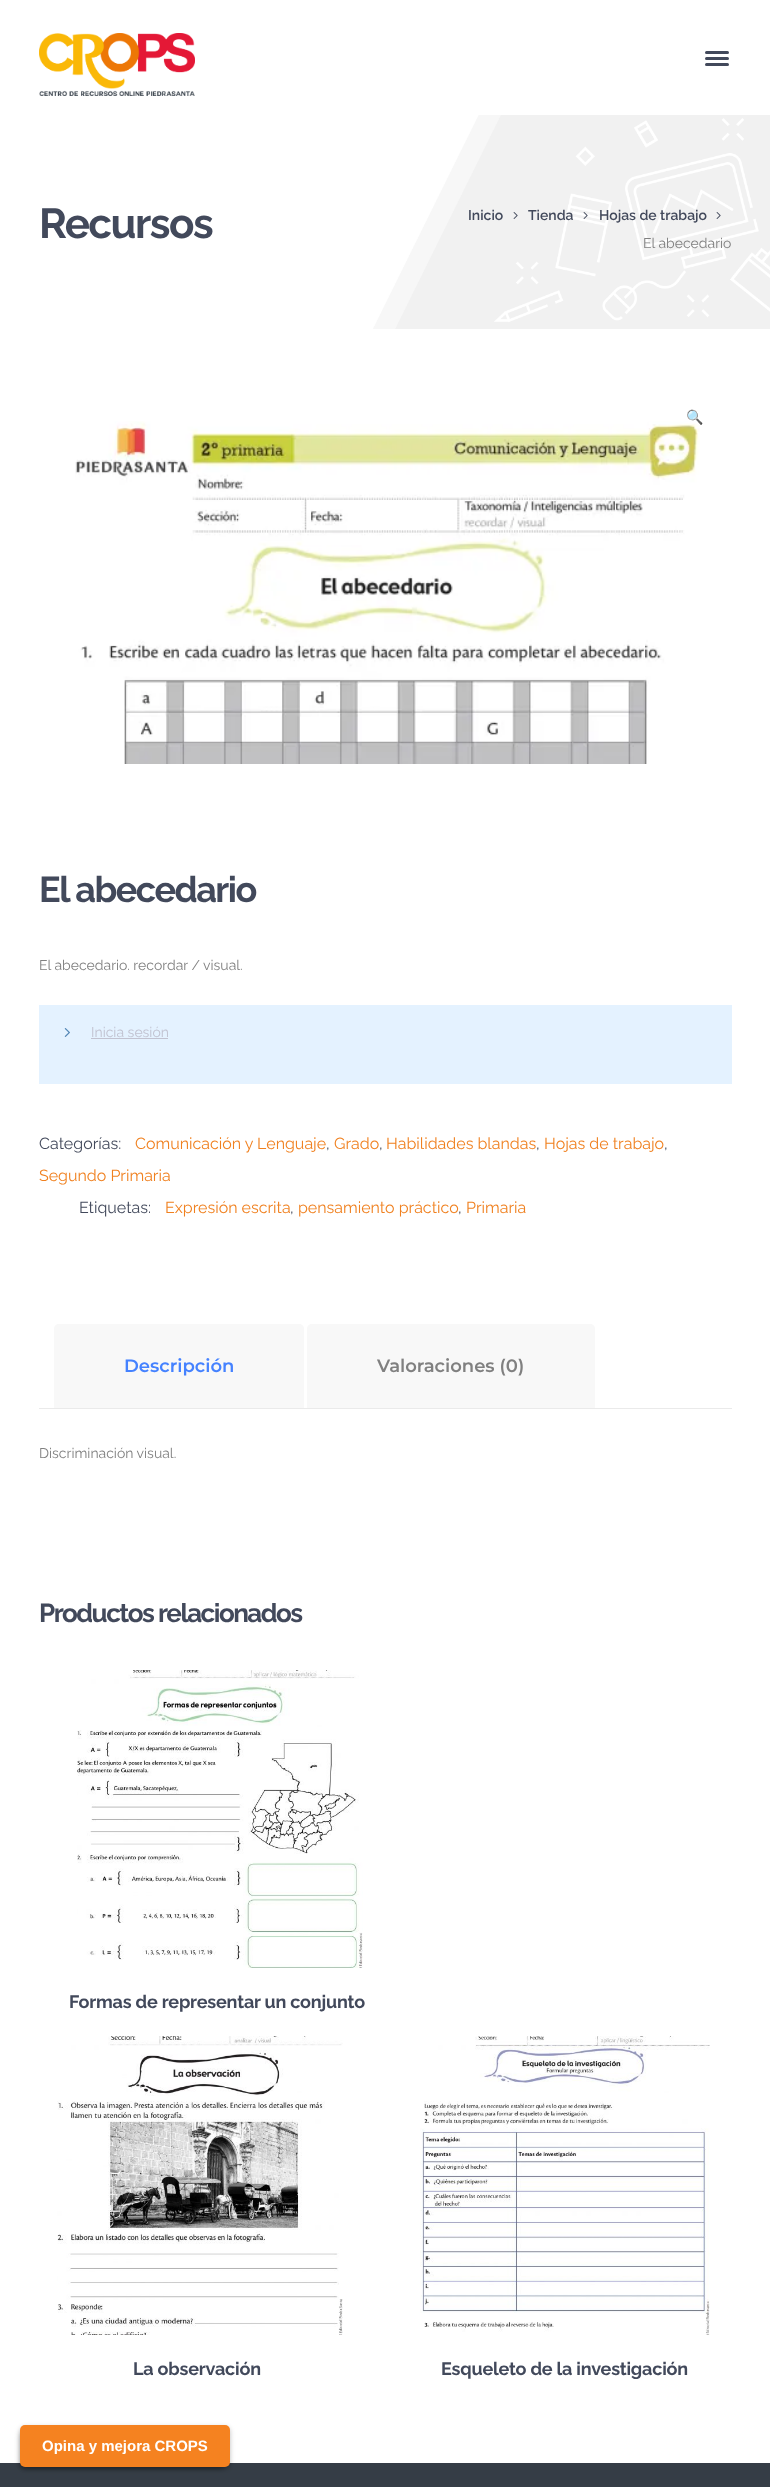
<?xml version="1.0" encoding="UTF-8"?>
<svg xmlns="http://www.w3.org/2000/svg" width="770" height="2487">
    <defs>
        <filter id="blur1" x="-50%" y="-200%" width="200%" height="500%"><feGaussianBlur stdDeviation="2.5"/></filter>
    </defs>
    <rect width="100%" height="100%" fill="#FFFFFF"/>
    <image x="39" y="33" width="156" height="63" href="img_01.png"/>
    <rect x="705" y="51" width="24" height="3" rx="1.5" fill="#42495B"/>
    <rect x="705" y="57" width="24" height="3" rx="1.5" fill="#42495B"/>
    <rect x="705" y="63" width="24" height="3" rx="1.5" fill="#42495B"/>
    <image x="0" y="115" width="770" height="214" href="img_02.png"/>
    <text x="39" y="238" font-family="Raleway" font-size="42" font-weight="700" letter-spacing="-1.5" fill="#42495B">Recursos</text>
    <text x="468" y="220" font-family="Raleway" font-size="14" font-weight="600" fill="#42495B">Inicio</text>
    <image x="513" y="212" width="5" height="7" href="img_03.png"/>
    <text x="528" y="220" font-family="Raleway" font-size="14" font-weight="600" fill="#42495B">Tienda</text>
    <image x="583" y="212" width="5" height="7" href="img_04.png"/>
    <text x="599" y="220" font-family="Raleway" font-size="14" font-weight="600" fill="#42495B">Hojas de trabajo</text>
    <image x="716" y="212" width="5" height="7" href="img_03.png"/>
    <text x="643" y="248" font-family="Raleway" font-size="14" fill="#808080">El abecedario</text>
    <image x="75" y="421" width="625" height="343" href="img_05.png"/>
    <text x="686" y="422" font-family="Noto Color Emoji" font-size="14" fill="#C1C2D0">🔍</text>
    <text x="39" y="902" font-family="Raleway" font-size="36" font-weight="700" letter-spacing="-1.5" fill="#42495B">El abecedario</text>
    <text x="39" y="970" font-family="Raleway" font-size="14" fill="#808080">El abecedario. recordar / visual.</text>
    <rect x="39" y="1005" width="693" height="79" fill="#E4F2FF"/>
    <image x="64" y="1028" width="6" height="9" href="img_06.png"/>
    <text x="91" y="1037" font-family="Raleway" font-size="14" fill="#C1C2D0">Inicia sesión</text>
    <rect x="91" y="1038" width="77" height="1" fill="#C1C2D0"/>
    <text x="39" y="1149" font-family="Raleway" font-size="16" fill="#42495B">Categorías:</text>
    <text x="135" y="1149" font-family="Raleway" font-size="16" fill="#F0801F">Comunicación y Lenguaje</text>
    <text x="326" y="1149" font-family="Raleway" font-size="16" fill="#42495B">,</text>
    <text x="334" y="1149" font-family="Raleway" font-size="16" fill="#F0801F">Grado</text>
    <text x="379" y="1149" font-family="Raleway" font-size="16" fill="#42495B">,</text>
    <text x="386" y="1149" font-family="Raleway" font-size="16" fill="#F0801F">Habilidades blandas</text>
    <text x="536" y="1149" font-family="Raleway" font-size="16" fill="#42495B">,</text>
    <text x="544" y="1149" font-family="Raleway" font-size="16" fill="#F0801F">Hojas de trabajo</text>
    <text x="664" y="1149" font-family="Raleway" font-size="16" fill="#42495B">,</text>
    <text x="39" y="1181" font-family="Raleway" font-size="16" fill="#F0801F">Segundo Primaria</text>
    <text x="79" y="1213" font-family="Raleway" font-size="16" fill="#42495B">Etiquetas:</text>
    <text x="165" y="1213" font-family="Raleway" font-size="16" fill="#F0801F">Expresión escrita</text>
    <text x="290" y="1213" font-family="Raleway" font-size="16" fill="#42495B">,</text>
    <text x="298" y="1213" font-family="Raleway" font-size="16" fill="#F0801F">pensamiento práctico</text>
    <text x="458" y="1213" font-family="Raleway" font-size="16" fill="#42495B">,</text>
    <text x="466" y="1213" font-family="Raleway" font-size="16" fill="#F0801F">Primaria</text>
    <rect x="39" y="1408" width="693" height="1" fill="#EAEAEA"/>
    <path d="M 59 1324 H 299 C 302 1324 304 1326 304 1329 V 1408 H 54 V 1329 C 54 1326 56 1324 59 1324 Z" fill="#F8F8F8"/>
    <text x="124" y="1372" font-family="Montserrat" font-size="18" font-weight="600" fill="#4582FF">Descripción</text>
    <path d="M 312 1324 H 590 C 593 1324 595 1326 595 1329 V 1408 H 307 V 1329 C 307 1326 309 1324 312 1324 Z" fill="#F8F8F8"/>
    <text x="377" y="1372" font-family="Montserrat" font-size="18" font-weight="600" fill="#808080">Valoraciones (0)</text>
    <text x="39" y="1458" font-family="Raleway" font-size="14" fill="#808080">Discriminación visual.</text>
    <text x="39" y="1622" font-family="Raleway" font-size="26" font-weight="700" letter-spacing="-1.5" fill="#42495B">Productos relacionados</text>
    <image x="77" y="1670" width="286" height="298" href="img_07.png"/>
    <text x="69" y="2008" font-family="Raleway" font-size="18" font-weight="700" letter-spacing="-0.2" fill="#42495B">Formas de representar un conjunto</text>
    <image x="57" y="2036" width="286" height="299" href="img_08.png"/>
    <text x="133" y="2375" font-family="Raleway" font-size="18" font-weight="700" letter-spacing="-0.2" fill="#42495B">La observación</text>
    <image x="420" y="2036" width="290" height="299" href="img_09.png"/>
    <text x="441" y="2375" font-family="Raleway" font-size="18" font-weight="700" letter-spacing="-0.2" fill="#42495B">Esqueleto de la investigación</text>
    <rect x="0" y="2463" width="770" height="24" fill="#353D46"/>
    <rect x="20" y="2432" width="205" height="37" rx="5" fill="#000000" fill-opacity="0.25" filter="url(#blur1)"/>
    <rect x="20" y="2427" width="210" height="42" rx="5" fill="#000000" fill-opacity="0.25" filter="url(#blur1)"/>
    <rect x="20" y="2425" width="210" height="42" rx="5" fill="#F58220"/>
    <text x="42" y="2451" font-family="Liberation Sans" font-size="15" font-weight="700" fill="#FFFFFF">Opina y mejora CROPS</text>
</svg>
